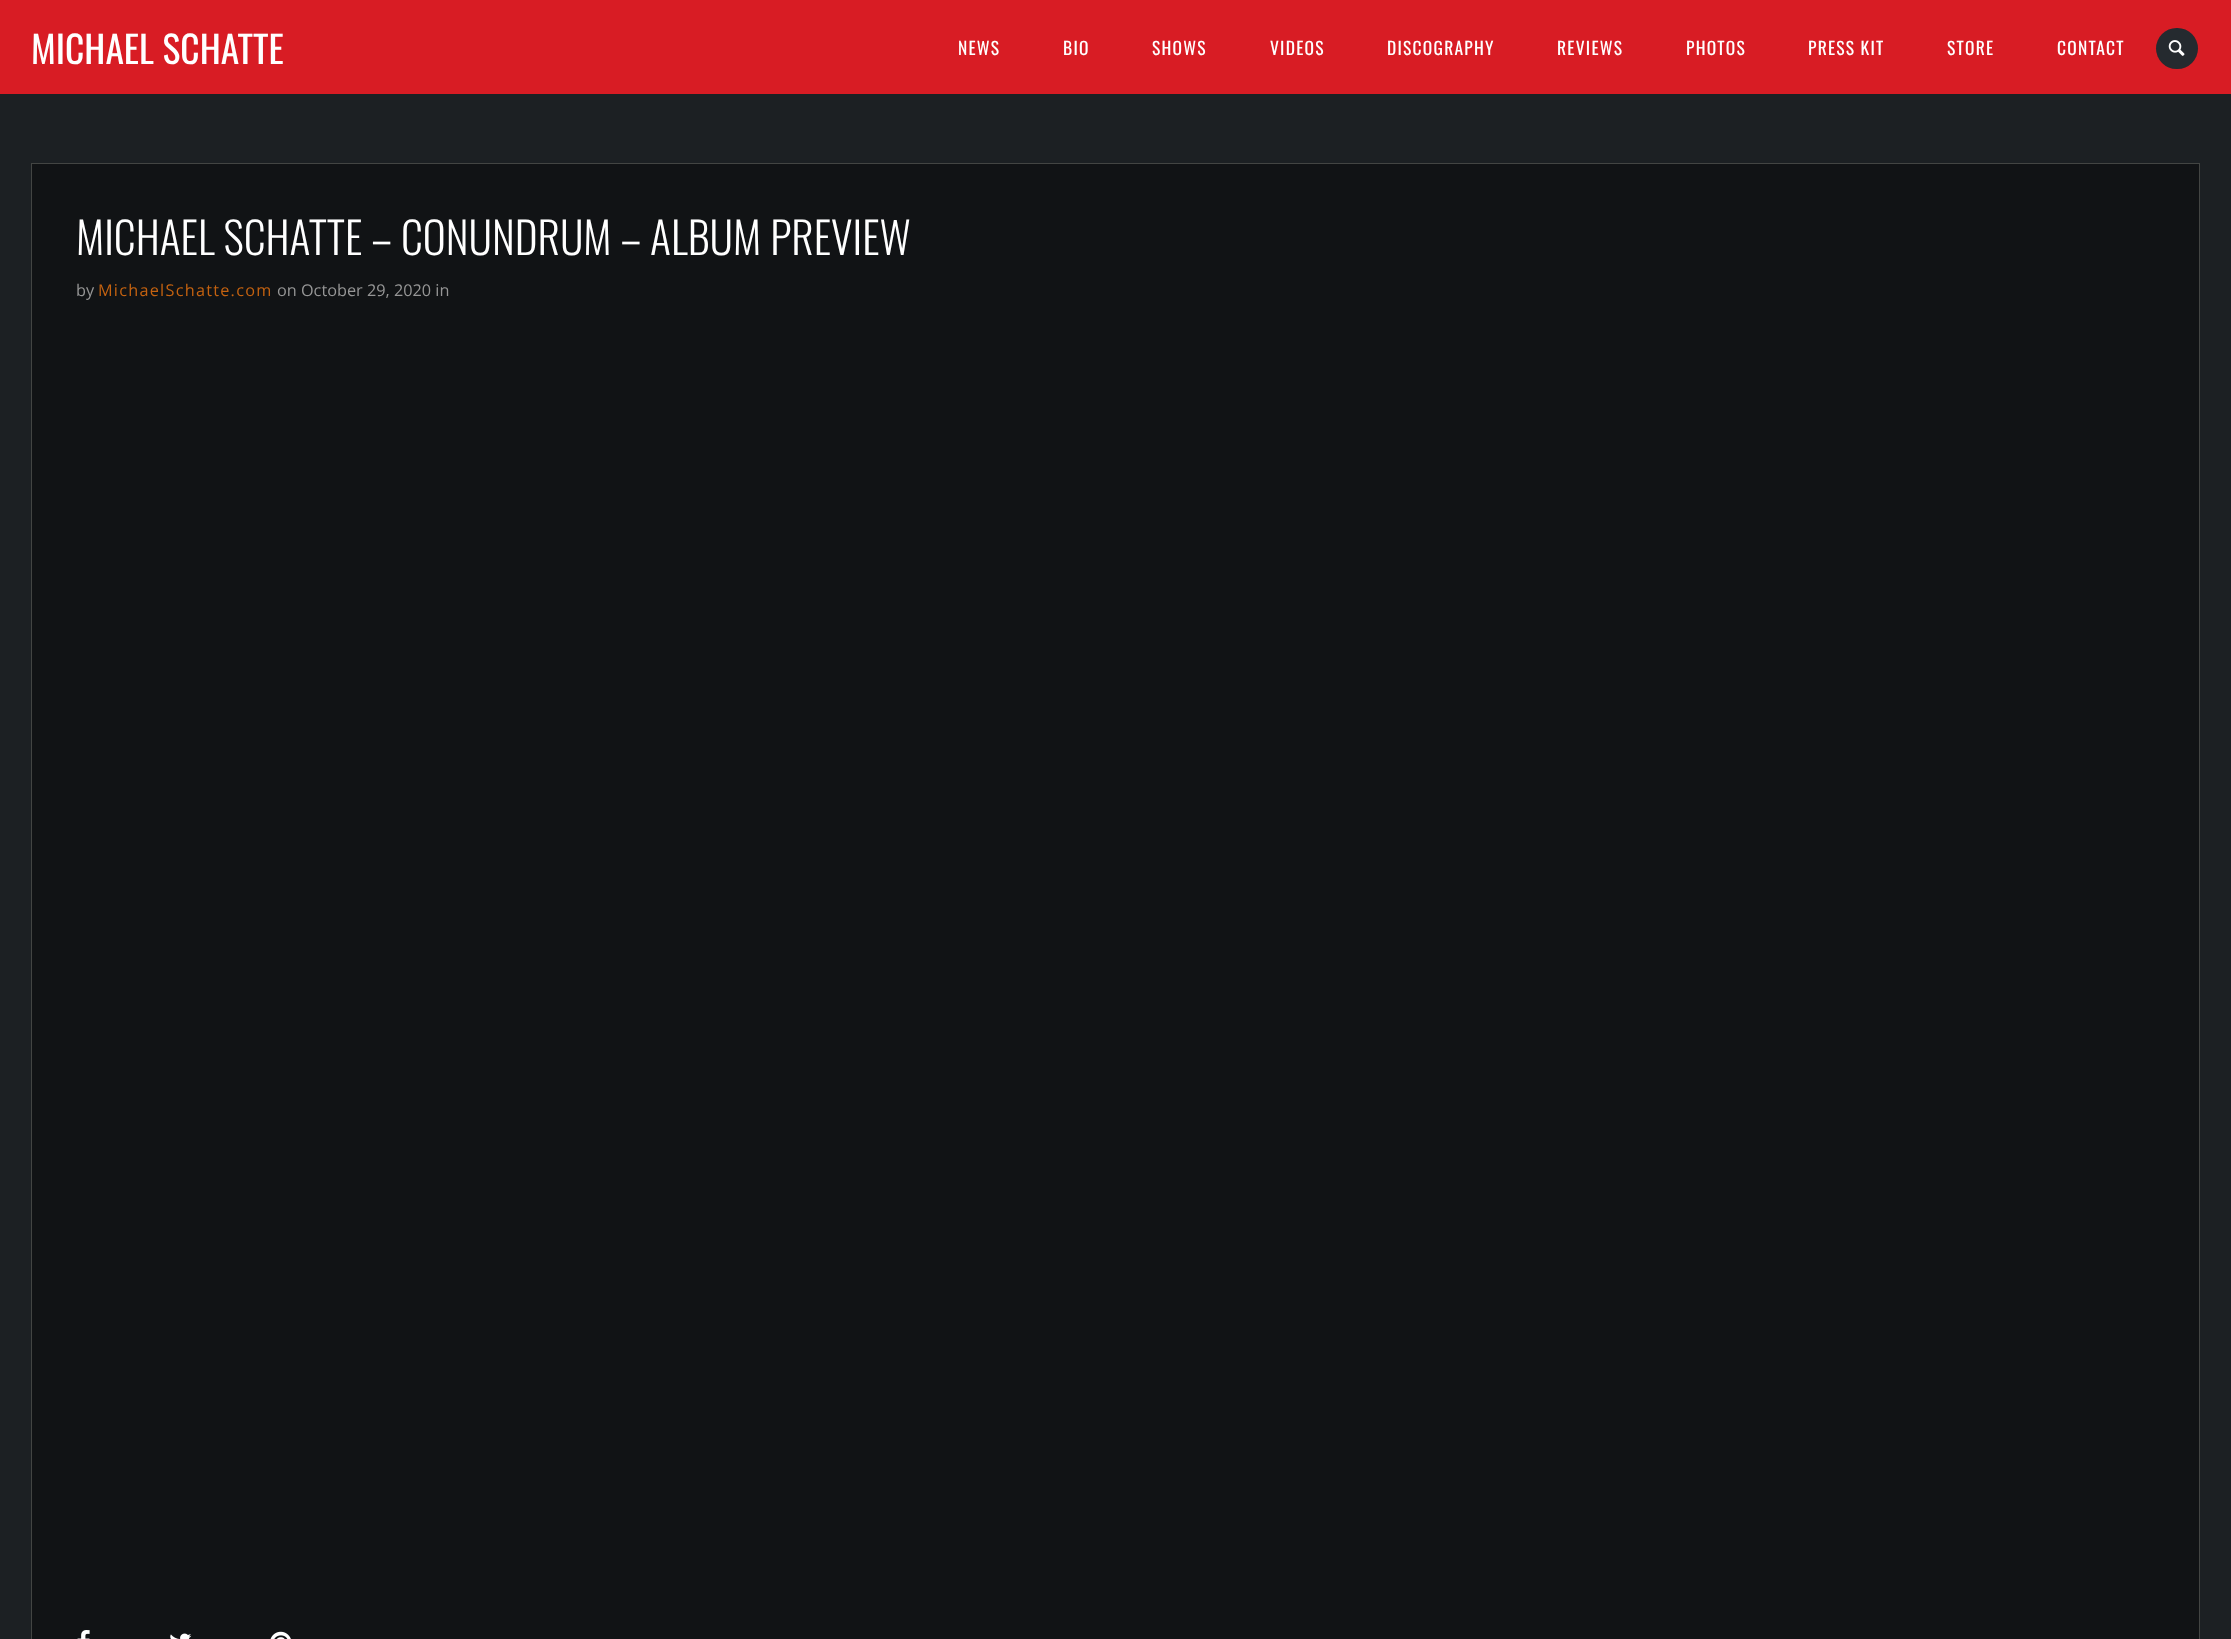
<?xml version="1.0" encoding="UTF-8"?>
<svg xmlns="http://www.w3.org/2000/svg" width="2231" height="1639">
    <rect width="100%" height="100%" fill="#1C2023"/>
    <rect x="0" y="0" width="2231" height="94" fill="#D81C24"/>
    <text x="31" y="64" font-family="Oswald" font-size="37.5" fill="#FFFFFF">MICHAEL SCHATTE</text>
    <text x="958" y="55" font-family="Oswald" font-size="17.5" letter-spacing="1.25" fill="#FFFFFF">NEWS</text>
    <text x="1063" y="55" font-family="Oswald" font-size="17.5" letter-spacing="1.25" fill="#FFFFFF">BIO</text>
    <text x="1152" y="55" font-family="Oswald" font-size="17.5" letter-spacing="1.25" fill="#FFFFFF">SHOWS</text>
    <text x="1270" y="55" font-family="Oswald" font-size="17.5" letter-spacing="1.25" fill="#FFFFFF">VIDEOS</text>
    <text x="1387" y="55" font-family="Oswald" font-size="17.5" letter-spacing="1.25" fill="#FFFFFF">DISCOGRAPHY</text>
    <text x="1557" y="55" font-family="Oswald" font-size="17.5" letter-spacing="1.25" fill="#FFFFFF">REVIEWS</text>
    <text x="1686" y="55" font-family="Oswald" font-size="17.5" letter-spacing="1.25" fill="#FFFFFF">PHOTOS</text>
    <text x="1808" y="55" font-family="Oswald" font-size="17.5" letter-spacing="1.25" fill="#FFFFFF">PRESS KIT</text>
    <text x="1947" y="55" font-family="Oswald" font-size="17.5" letter-spacing="1.25" fill="#FFFFFF">STORE</text>
    <text x="2057" y="55" font-family="Oswald" font-size="17.5" letter-spacing="1.25" fill="#FFFFFF">CONTACT</text>
    <rect x="2156" y="28" width="42" height="41" rx="20.5" fill="#252A2F"/>
    <image x="2168" y="40" width="17" height="16" href="img_01.png"/>
    <rect x="31.5" y="163.5" width="2168" height="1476" fill="#111315" stroke="#434543"/>
    <text x="76" y="255" font-family="Oswald" font-size="43.75" font-weight="300" fill="#FFFFFF">MICHAEL SCHATTE – CONUNDRUM – ALBUM PREVIEW</text>
    <text x="76" y="296" font-family="Open Sans" font-size="16.25" fill="#969696">by</text>
    <text x="98" y="296" font-family="Open Sans" font-size="16.25" letter-spacing="1.25" fill="#C46210">MichaelSchatte.com</text>
    <text x="277" y="296" font-family="Open Sans" font-size="16.25" fill="#969696">on October 29, 2020 in</text>
    <image x="77" y="1630" width="13" height="9" href="img_02.png"/>
    <image x="170" y="1633" width="22" height="6" href="img_03.png"/>
    <image x="270" y="1631" width="21" height="8" href="img_04.png"/>
</svg>
